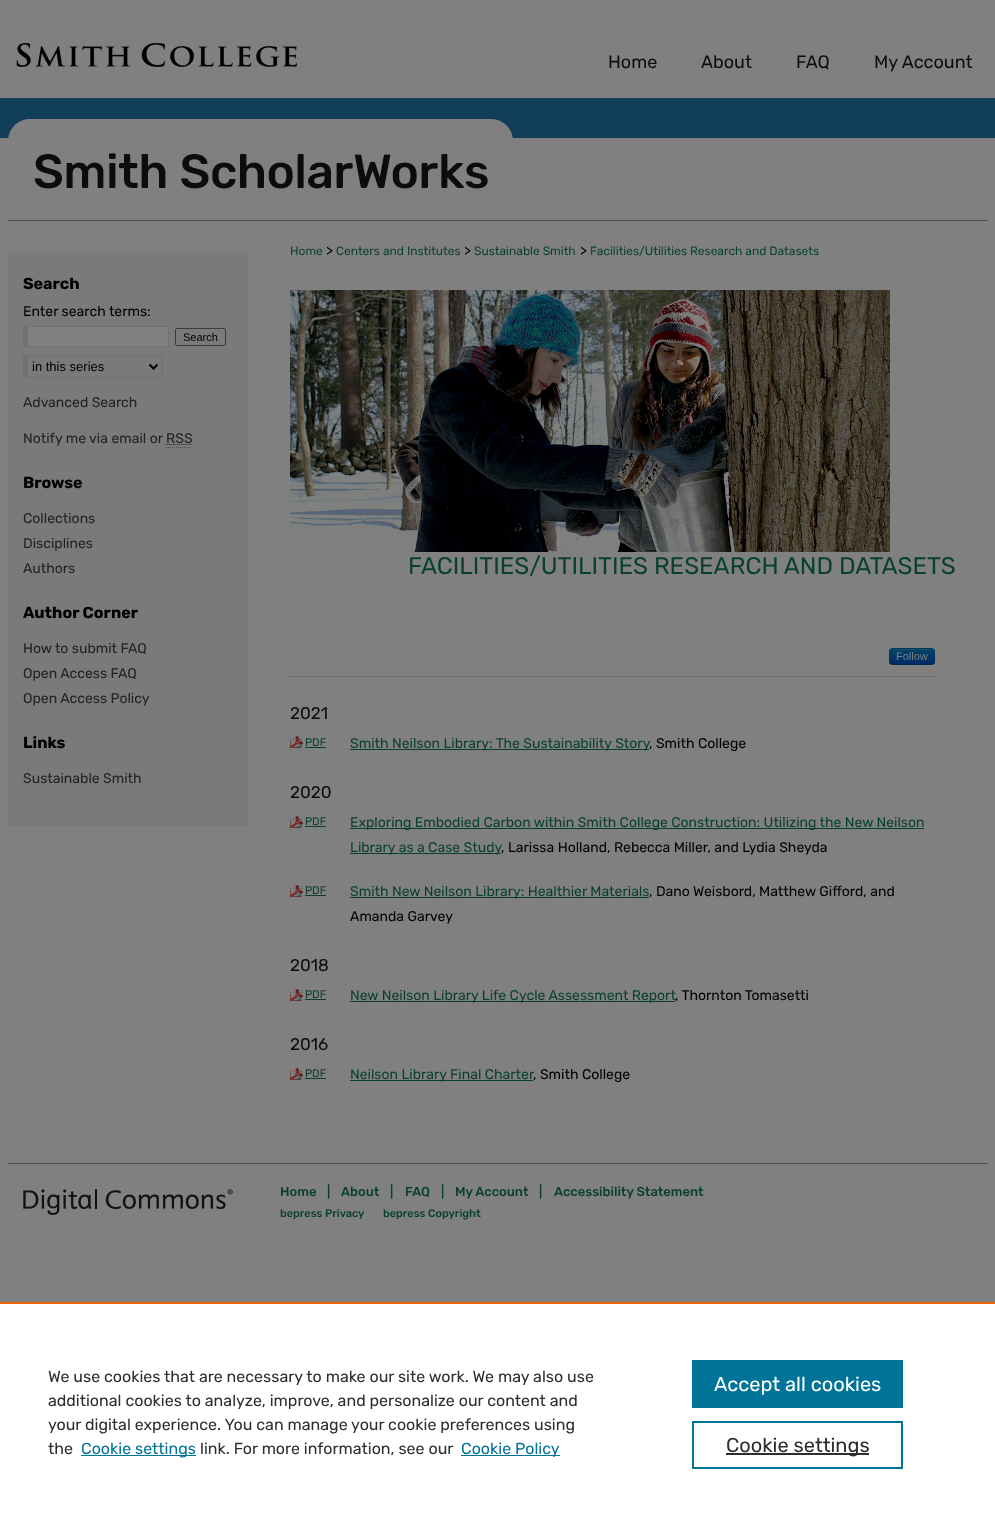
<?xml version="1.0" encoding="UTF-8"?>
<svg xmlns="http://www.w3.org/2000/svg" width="995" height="1522">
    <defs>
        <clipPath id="clip1"><rect x="889" y="648" width="46" height="17" rx="4"/></clipPath>
        <linearGradient id="g1" gradientUnits="userSpaceOnUse" x1="912" y1="649" x2="912" y2="664"><stop offset="0" stop-color="#004466"/><stop offset="1" stop-color="#002B66"/></linearGradient>
    </defs>
    <rect width="100%" height="100%" fill="#808080"/>
    <rect x="0" y="98" width="995" height="40" fill="#113E58"/>
    <image x="16" y="42" width="281" height="25" href="img_01.png"/>
    <text x="608" y="68" font-family="Rubik" font-size="18" fill="#0C0D0E">Home</text>
    <text x="701" y="68" font-family="Rubik" font-size="18" fill="#0C0D0E">About</text>
    <text x="796" y="68" font-family="Rubik" font-size="18" fill="#0C0D0E">FAQ</text>
    <text x="874" y="68" font-family="Rubik" font-size="18" fill="#0C0D0E">My Account</text>
    <image x="8" y="98" width="980" height="123" href="img_02.png"/>
    <rect x="8" y="252" width="240" height="574" fill="#7A7A7A"/>
    <text x="23" y="289" font-family="Rubik" font-size="16" font-weight="700" fill="#000000">Search</text>
    <text x="23" y="316" font-family="Rubik" font-size="14" fill="#000000">Enter search terms:</text>
    <rect x="28" y="327" width="140" height="19" fill="#808080"/>
    <rect x="23" y="326" width="146" height="1" fill="#717171"/>
    <rect x="168" y="326" width="1" height="21" fill="#717171"/>
    <rect x="23" y="346" width="146" height="1" fill="#717171"/>
    <rect x="23" y="326" width="5" height="21" fill="#717171"/>
    <rect x="175.5" y="328.5" width="50" height="17" rx="1.5" fill="none" stroke="#3B3B3B"/>
    <text x="183" y="341" font-family="Liberation Sans" font-size="11" fill="#000000">Search</text>
    <rect x="23" y="355" width="140" height="1" fill="#717171"/>
    <rect x="162" y="355" width="1" height="23" fill="#717171"/>
    <rect x="23" y="377" width="140" height="1" fill="#717171"/>
    <rect x="23" y="355" width="5" height="23" fill="#717171"/>
    <path d="M 149.5 364.5 L 153.5 368.5 L 157.5 364.5" fill="none" stroke="#000000" stroke-width="2"/>
    <text x="32" y="371" font-family="Liberation Sans" font-size="13" fill="#000000">in this series</text>
    <text x="23" y="407" font-family="Rubik" font-size="14" fill="#222222">Advanced Search</text>
    <text x="23" y="443" font-family="Rubik" font-size="14" fill="#222222">Notify me via email or RSS</text>
    <path d="M 165.5 444.5 H 192" fill="none" stroke="#222222" stroke-dasharray="1 1"/>
    <path d="M 166 447.5 H 192" fill="none" stroke="#4D4D4D" stroke-dasharray="1 1"/>
    <text x="23" y="488" font-family="Rubik" font-size="16" font-weight="700" fill="#000000">Browse</text>
    <text font-family="Rubik" font-size="14" fill="#222222">
        <tspan x="23" y="523">Collections</tspan>
        <tspan x="23" y="548">Disciplines</tspan>
        <tspan x="23" y="573">Authors</tspan>
    </text>
    <text x="23" y="618" font-family="Rubik" font-size="16" font-weight="700" fill="#000000">Author Corner</text>
    <text font-family="Rubik" font-size="14" fill="#222222">
        <tspan x="23" y="653">How to submit FAQ</tspan>
        <tspan x="23" y="678">Open Access FAQ</tspan>
        <tspan x="23" y="703">Open Access Policy</tspan>
    </text>
    <text x="23" y="748" font-family="Rubik" font-size="16" font-weight="700" fill="#000000">Links</text>
    <text x="23" y="783" font-family="Rubik" font-size="14" fill="#222222">Sustainable Smith</text>
    <text x="290" y="255" font-family="Rubik" font-size="12" fill="#083F31">Home</text>
    <text x="326" y="255" font-family="Rubik" font-size="14" fill="#000000">&gt;</text>
    <text x="336" y="255" font-family="Rubik" font-size="12" fill="#083F31">Centers and Institutes</text>
    <text x="464" y="255" font-family="Rubik" font-size="14" fill="#000000">&gt;</text>
    <text x="474" y="255" font-family="Rubik" font-size="12" fill="#083F31">Sustainable Smith</text>
    <text x="580" y="255" font-family="Rubik" font-size="14" fill="#000000">&gt;</text>
    <text x="590" y="255" font-family="Rubik" font-size="12" fill="#083F31">Facilities/Utilities Research and Datasets</text>
    <image x="290" y="290" width="600" height="262" href="img_03.png"/>
    <text x="408" y="574" font-family="Rubik" font-size="24" fill="#083F31">FACILITIES/UTILITIES RESEARCH AND DATASETS</text>
    <rect x="290" y="676" width="645" height="1" fill="#6F6F6F"/>
    <rect x="889" y="648" width="46" height="17" rx="4" fill="#003A66"/>
    <g clip-path="url(#clip1)">
        <rect x="889" y="649" width="46" height="15" fill="url(#g1)"/>
    </g>
    <path d="M 893 650 H 926 C 933 650 934 650 934 656 V 662 V 655 C 934 648 932 649 925 649 H 899 C 892 649 890 648 890 655 V 663 C 890 660 888 650 893 650 Z" fill="#808080" fill-opacity="0.2"/>
    <path d="M 933.5 663.5 C 933 664 932 664.5 931 664.5 H 893 C 892 664.5 891 664 890.5 663.5" fill="none" stroke="#000000" stroke-opacity="0.25"/>
    <path d="M 890.5 663.5 C 889 661.5 889.5 658.5 889.5 656.5 C 889.5 647.5 890 648.5 899.5 648.5 H 924.5 C 934 648.5 934.5 647.5 934.5 656.5 C 934.5 658.5 935 661.5 933.5 663.5" fill="none" stroke="#000000" stroke-opacity="0.1"/>
    <text x="896" y="660" font-family="Liberation Sans" font-size="11" fill="#808080">Follow</text>
    <text x="290" y="719" font-family="Rubik" font-size="17" fill="#0C0D0E">2021</text>
    <image x="290" y="736" width="13" height="12" href="img_04.png"/>
    <text x="305" y="746" font-family="Rubik" font-size="11" fill="#083F31">PDF</text>
    <rect x="305" y="747" width="21" height="1" fill="#083F31"/>
    <rect x="350" y="749" width="299" height="1" fill="#083F31"/>
    <text x="350" y="748" font-family="Rubik" font-size="14" fill="#083F31">Smith Neilson Library: The Sustainability Story</text>
    <text x="649" y="748" font-family="Rubik" font-size="14" fill="#000000">, Smith College</text>
    <text x="290" y="798" font-family="Rubik" font-size="17" fill="#0C0D0E">2020</text>
    <image x="290" y="816" width="13" height="12" href="img_04.png"/>
    <text x="305" y="825" font-family="Rubik" font-size="11" fill="#083F31">PDF</text>
    <rect x="305" y="826" width="21" height="1" fill="#083F31"/>
    <rect x="350" y="828" width="574" height="1" fill="#083F31"/>
    <text x="350" y="827" font-family="Rubik" font-size="14" fill="#083F31">Exploring Embodied Carbon within Smith College Construction: Utilizing the New Neilson</text>
    <rect x="350" y="853" width="151" height="1" fill="#083F31"/>
    <text x="350" y="852" font-family="Rubik" font-size="14" fill="#083F31">Library as a Case Study</text>
    <text x="501" y="852" font-family="Rubik" font-size="14" fill="#000000">, Larissa Holland, Rebecca Miller, and Lydia Sheyda</text>
    <image x="290" y="885" width="13" height="12" href="img_04.png"/>
    <text x="305" y="894" font-family="Rubik" font-size="11" fill="#083F31">PDF</text>
    <rect x="305" y="895" width="21" height="1" fill="#083F31"/>
    <rect x="350" y="897" width="299" height="1" fill="#083F31"/>
    <text x="350" y="896" font-family="Rubik" font-size="14" fill="#083F31">Smith New Neilson Library: Healthier Materials</text>
    <text x="649" y="896" font-family="Rubik" font-size="14" fill="#000000">, Dano Weisbord, Matthew Gifford, and</text>
    <text x="350" y="921" font-family="Rubik" font-size="14" fill="#000000">Amanda Garvey</text>
    <text x="290" y="971" font-family="Rubik" font-size="17" fill="#0C0D0E">2018</text>
    <image x="290" y="989" width="13" height="12" href="img_04.png"/>
    <text x="305" y="998" font-family="Rubik" font-size="11" fill="#083F31">PDF</text>
    <rect x="305" y="999" width="21" height="1" fill="#083F31"/>
    <rect x="350" y="1001" width="325" height="1" fill="#083F31"/>
    <text x="350" y="1000" font-family="Rubik" font-size="14" fill="#083F31">New Neilson Library Life Cycle Assessment Report</text>
    <text x="675" y="1000" font-family="Rubik" font-size="14" fill="#000000">, Thornton Tomasetti</text>
    <text x="290" y="1050" font-family="Rubik" font-size="17" fill="#0C0D0E">2016</text>
    <image x="290" y="1068" width="13" height="12" href="img_04.png"/>
    <text x="305" y="1077" font-family="Rubik" font-size="11" fill="#083F31">PDF</text>
    <rect x="305" y="1078" width="21" height="1" fill="#083F31"/>
    <rect x="350" y="1080" width="183" height="1" fill="#083F31"/>
    <text x="350" y="1079" font-family="Rubik" font-size="14" fill="#083F31">Neilson Library Final Charter</text>
    <text x="533" y="1079" font-family="Rubik" font-size="14" fill="#000000">, Smith College</text>
    <rect x="8" y="1163" width="980" height="1" fill="#505050"/>
    <image x="23" y="1189" width="210" height="26" href="img_05.png"/>
    <text x="280" y="1196" font-family="Rubik" font-size="13" font-weight="500" fill="#083F31">Home</text>
    <text x="327" y="1196" font-family="Rubik" font-size="13" font-weight="500" fill="#083F31">|</text>
    <text x="341" y="1196" font-family="Rubik" font-size="13" font-weight="500" fill="#083F31">About</text>
    <text x="390" y="1196" font-family="Rubik" font-size="13" font-weight="500" fill="#083F31">|</text>
    <text x="405" y="1196" font-family="Rubik" font-size="13" font-weight="500" fill="#083F31">FAQ</text>
    <text x="441" y="1196" font-family="Rubik" font-size="13" font-weight="500" fill="#083F31">|</text>
    <text x="455" y="1196" font-family="Rubik" font-size="13" font-weight="500" fill="#083F31">My Account</text>
    <text x="539" y="1196" font-family="Rubik" font-size="13" font-weight="500" fill="#083F31">|</text>
    <text x="554" y="1196" font-family="Rubik" font-size="13" font-weight="500" fill="#083F31">Accessibility Statement</text>
    <text x="280" y="1217" font-family="Rubik" font-size="11" font-weight="500" fill="#083F31">bepress Privacy</text>
    <text x="383" y="1217" font-family="Rubik" font-size="11" font-weight="500" fill="#083F31">bepress Copyright</text>
    <rect x="0" y="1304" width="995" height="218" fill="#FFFFFF"/>
    <rect x="0" y="1302" width="995" height="2" fill="#EB6500"/>
    <text font-family="Rubik" font-size="16" fill="#2E2E2E">
        <tspan x="48" y="1382">We use cookies that are necessary to make our site work. We may also use</tspan>
        <tspan x="48" y="1406">additional cookies to analyze, improve, and personalize our content and</tspan>
        <tspan x="48" y="1430">your digital experience. You can manage your cookie preferences using</tspan>
        <tspan x="48" y="1454">the</tspan>
    </text>
    <rect x="81" y="1455" width="115" height="1" fill="#007398"/>
    <text x="81" y="1454" font-family="Rubik" font-size="16" fill="#007398">Cookie settings</text>
    <text x="200" y="1454" font-family="Rubik" font-size="16" fill="#2E2E2E">link. For more information, see our</text>
    <rect x="461" y="1455" width="99" height="1" fill="#007398"/>
    <text x="461" y="1454" font-family="Rubik" font-size="16" fill="#007398">Cookie Policy</text>
    <rect x="692" y="1360" width="211" height="48" fill="#007398"/>
    <text x="714" y="1391" font-family="Rubik" font-size="20" fill="#FFFFFF">Accept all cookies</text>
    <rect x="693" y="1422" width="209" height="46" fill="none" stroke="#007398" stroke-width="2"/>
    <rect x="726" y="1453" width="143" height="2" fill="#2E2E2E"/>
    <text x="726" y="1452" font-family="Rubik" font-size="20" fill="#2E2E2E">Cookie settings</text>
</svg>
